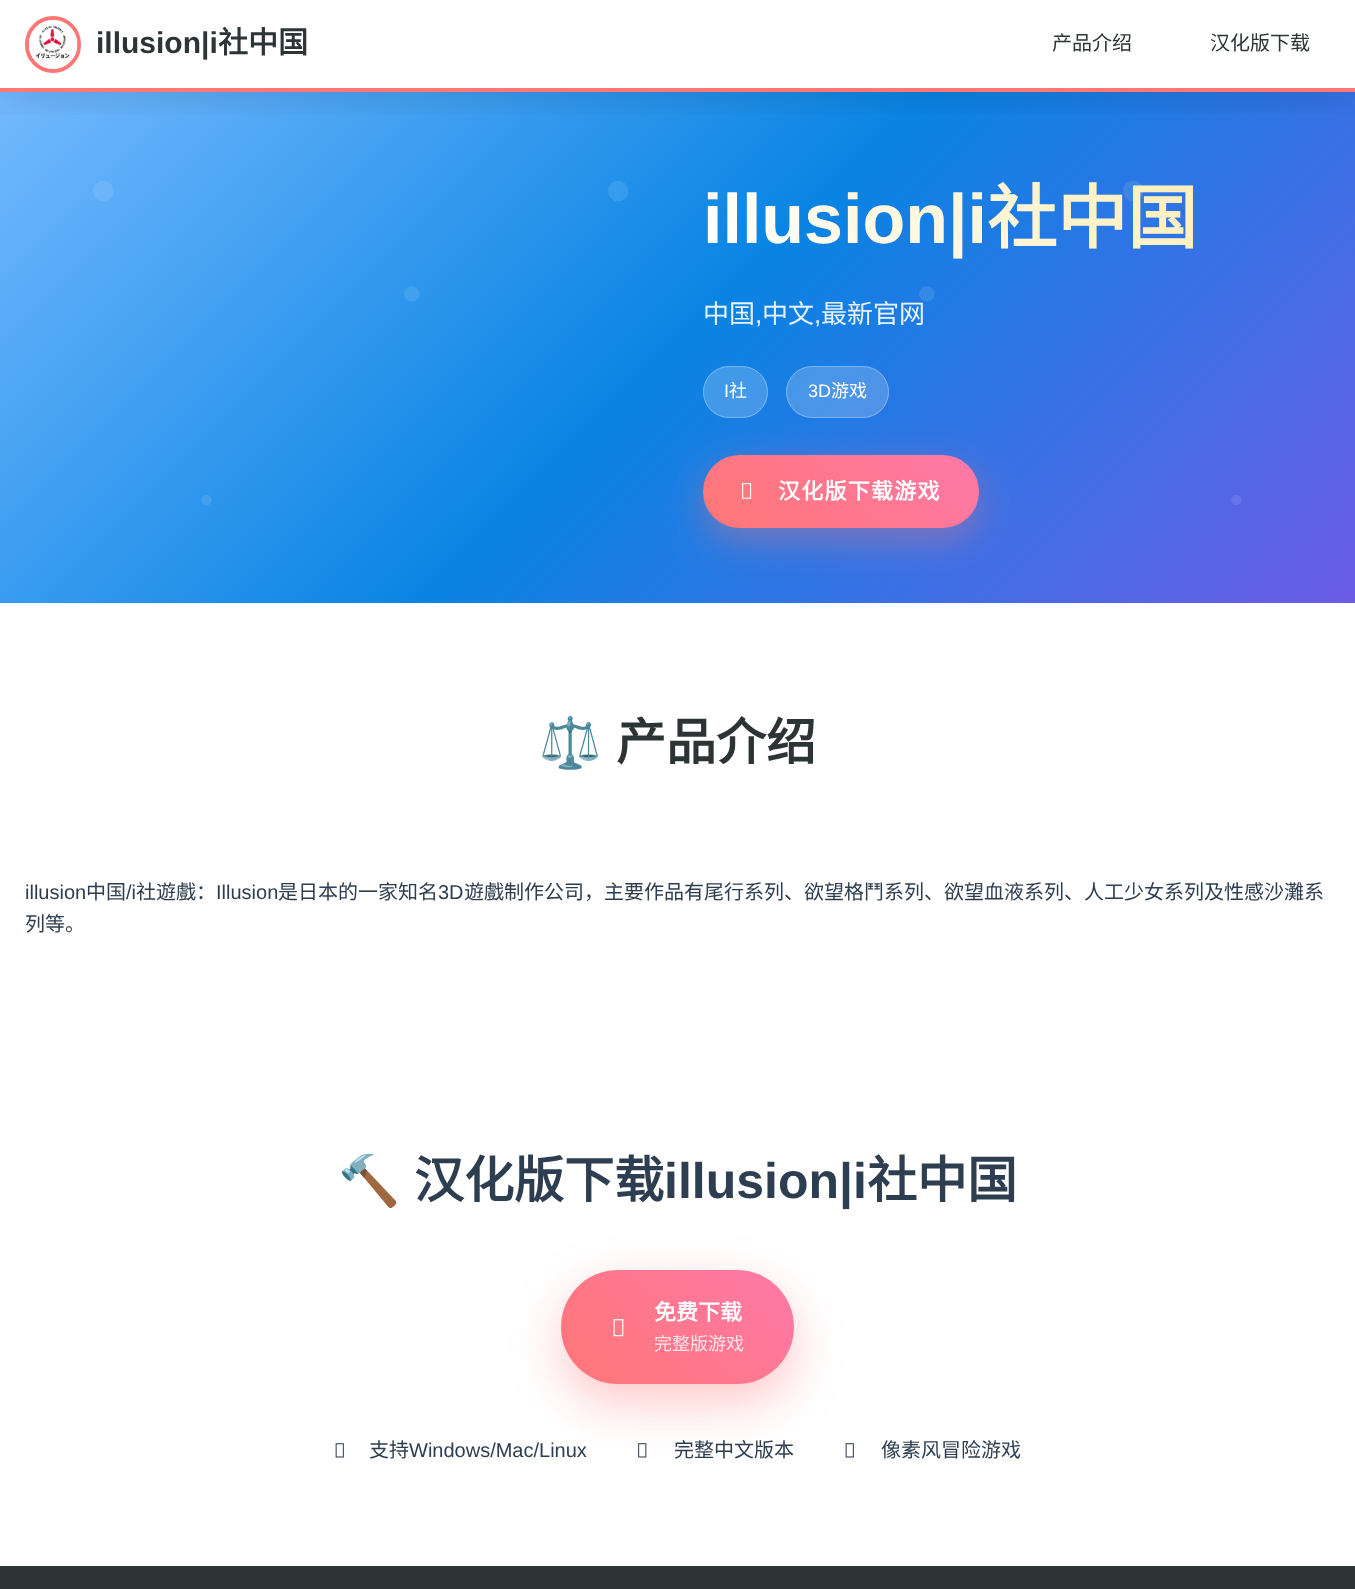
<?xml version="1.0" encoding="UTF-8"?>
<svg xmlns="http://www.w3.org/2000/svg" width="1355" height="1589">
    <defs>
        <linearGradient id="g1" gradientUnits="userSpaceOnUse" x1="210" y1="-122" x2="1145" y2="813"><stop offset="0" stop-color="#74B9FF"/><stop offset="0.5" stop-color="#0984E3"/><stop offset="1" stop-color="#6C5CE7"/></linearGradient>
        <clipPath id="clip1"><rect x="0" y="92" width="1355" height="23"/></clipPath>
        <filter id="blur1" x="-50%" y="-200%" width="200%" height="500%"><feGaussianBlur stdDeviation="19"/></filter>
        <linearGradient id="g2" gradientUnits="userSpaceOnUse" x1="831" y1="403" x2="1201" y2="34"><stop offset="0" stop-color="#FFFFFF"/><stop offset="1" stop-color="#FFEAA7"/></linearGradient>
        <linearGradient id="g3" gradientUnits="userSpaceOnUse" x1="753" y1="578" x2="928" y2="404"><stop offset="0" stop-color="#FF7675"/><stop offset="1" stop-color="#FD79A8"/></linearGradient>
        <filter id="blur2" x="-50%" y="-200%" width="200%" height="500%"><feGaussianBlur stdDeviation="25"/></filter>
        <linearGradient id="g4" gradientUnits="userSpaceOnUse" x1="591" y1="1413" x2="764" y2="1240"><stop offset="0" stop-color="#FF7675"/><stop offset="1" stop-color="#FD79A8"/></linearGradient>
    </defs>
    <rect width="100%" height="100%" fill="#FFFFFF"/>
    <rect x="0" y="92" width="1355" height="511" fill="url(#g1)"/>
    <g clip-path="url(#clip1)">
        <rect x="0" y="3" width="1355" height="91" fill="#000000" fill-opacity="0.15" filter="url(#blur1)"/>
    </g>
    <rect x="0" y="88" width="1355" height="4" fill="#FF7675"/>
    <rect x="27" y="18" width="52" height="53" rx="26" fill="none" stroke="#FF7675" stroke-width="4"/>
    <image x="28" y="20" width="50" height="49" href="img_01.png"/>
    <text x="96" y="53" font-family="Liberation Sans" font-size="30" font-weight="700" fill="#2D3436">illusion|i</text>
    <text x="218" y="53" font-family="Noto Sans CJK SC" font-size="30" font-weight="700" fill="#2D3436">社中国</text>
    <text x="1052" y="50" font-family="Noto Sans CJK SC" font-size="20" fill="#2D3436">产品介绍</text>
    <text x="1210" y="50" font-family="Noto Sans CJK SC" font-size="20" fill="#2D3436">汉化版下载</text>
    <image x="93" y="181" width="1149" height="325" href="img_02.png"/>
    <text x="703" y="243" font-family="Liberation Sans" font-size="70" font-weight="700" fill="url(#g2)">illusion|i</text>
    <text x="987" y="243" font-family="Noto Sans CJK SC" font-size="70" font-weight="700" fill="url(#g2)">社中国</text>
    <text x="703" y="323" font-family="Noto Sans CJK SC" font-size="26" fill="#E7F3FC">中国</text>
    <text x="755" y="323" font-family="Liberation Sans" font-size="26" fill="#E7F3FC">,</text>
    <text x="762" y="323" font-family="Noto Sans CJK SC" font-size="26" fill="#E7F3FC">中文</text>
    <text x="814" y="323" font-family="Liberation Sans" font-size="26" fill="#E7F3FC">,</text>
    <text x="821" y="323" font-family="Noto Sans CJK SC" font-size="26" fill="#E7F3FC">最新官网</text>
    <rect x="703" y="468" width="276" height="72" rx="36" fill="#FF7675" fill-opacity="0.4" filter="url(#blur1)"/>
    <rect x="703" y="366" width="65" height="52" rx="26" fill="#FFFFFF" fill-opacity="0.2"/>
    <rect x="703.5" y="366.5" width="64" height="51" rx="25.5" fill="none" stroke="#FFFFFF" stroke-opacity="0.3"/>
    <text x="724" y="397" font-family="Liberation Sans" font-size="18" fill="#FFFFFF">I</text>
    <text x="729" y="397" font-family="Noto Sans CJK SC" font-size="18" fill="#FFFFFF">社</text>
    <rect x="786" y="366" width="103" height="52" rx="26" fill="#FFFFFF" fill-opacity="0.2"/>
    <rect x="786.5" y="366.5" width="102" height="51" rx="25.5" fill="none" stroke="#FFFFFF" stroke-opacity="0.3"/>
    <text x="808" y="397" font-family="Liberation Sans" font-size="18" fill="#FFFFFF">3D</text>
    <text x="831" y="397" font-family="Noto Sans CJK SC" font-size="18" fill="#FFFFFF">游戏</text>
    <rect x="703" y="455" width="276" height="73" rx="36.5" fill="url(#g3)"/>
    <image x="742" y="483" width="10" height="16" href="img_03.png"/>
    <text x="778" y="499" font-family="Noto Sans CJK SC" font-size="22" font-weight="700" letter-spacing="1.25" fill="#FFFFFF">汉化版下载游戏</text>
    <text x="539" y="760" font-family="Noto Color Emoji" font-size="50" font-weight="700" fill="#2D3436">⚖️</text>
    <text x="616" y="760" font-family="Noto Sans CJK SC" font-size="50" font-weight="700" fill="#2D3436">产品介绍</text>
    <text x="25" y="899" font-family="Liberation Sans" font-size="20" fill="#2C3E50">illusion</text>
    <text x="86" y="899" font-family="Noto Sans CJK SC" font-size="20" fill="#2C3E50">中国</text>
    <text x="126" y="899" font-family="Liberation Sans" font-size="20" fill="#2C3E50">/i</text>
    <text x="136" y="899" font-family="Noto Sans CJK SC" font-size="20" fill="#2C3E50">社遊戲：</text>
    <text x="216" y="899" font-family="Liberation Sans" font-size="20" fill="#2C3E50">Illusion</text>
    <text x="278" y="899" font-family="Noto Sans CJK SC" font-size="20" fill="#2C3E50">是日本的一家知名</text>
    <text x="438" y="899" font-family="Liberation Sans" font-size="20" fill="#2C3E50">3D</text>
    <text x="464" y="899" font-family="Noto Sans CJK SC" font-size="20" fill="#2C3E50">遊戲制作公司，主要作品有尾行系列、欲望格鬥系列、欲望血液系列、人工少女系列及性感沙灘系</text>
    <text x="25" y="931" font-family="Noto Sans CJK SC" font-size="20" fill="#2C3E50">列等。</text>
    <text x="338" y="1198" font-family="Noto Color Emoji" font-size="50" font-weight="700" fill="#2C3E50">🔨</text>
    <text x="414" y="1198" font-family="Noto Sans CJK SC" font-size="50" font-weight="700" fill="#2C3E50">汉化版下载</text>
    <text x="664" y="1198" font-family="Liberation Sans" font-size="50" font-weight="700" fill="#2C3E50">illusion|i</text>
    <text x="867" y="1198" font-family="Noto Sans CJK SC" font-size="50" font-weight="700" fill="#2C3E50">社中国</text>
    <rect x="561" y="1289" width="233" height="114" rx="57" fill="#FF7675" fill-opacity="0.4" filter="url(#blur2)"/>
    <rect x="561" y="1270" width="233" height="114" rx="57" fill="url(#g4)"/>
    <image x="613" y="1319" width="11" height="18" href="img_04.png"/>
    <text x="654" y="1320" font-family="Noto Sans CJK SC" font-size="22" font-weight="700" fill="#FFFFFF">免费下载</text>
    <text x="654" y="1350" font-family="Noto Sans CJK SC" font-size="18" fill="#FFE4E9">完整版游戏</text>
    <image x="335" y="1443" width="9" height="15" href="img_05.png"/>
    <text x="369" y="1457" font-family="Noto Sans CJK SC" font-size="20" fill="#2C3E50">支持</text>
    <text x="409" y="1457" font-family="Liberation Sans" font-size="20" fill="#2C3E50">Windows/Mac/Linux</text>
    <image x="638" y="1443" width="9" height="15" href="img_06.png"/>
    <text x="674" y="1457" font-family="Noto Sans CJK SC" font-size="20" fill="#2C3E50">完整中文版本</text>
    <image x="845" y="1443" width="9" height="15" href="img_05.png"/>
    <text x="881" y="1457" font-family="Noto Sans CJK SC" font-size="20" fill="#2C3E50">像素风冒险游戏</text>
    <rect x="0" y="1566" width="1355" height="23" fill="#2D3436"/>
</svg>
